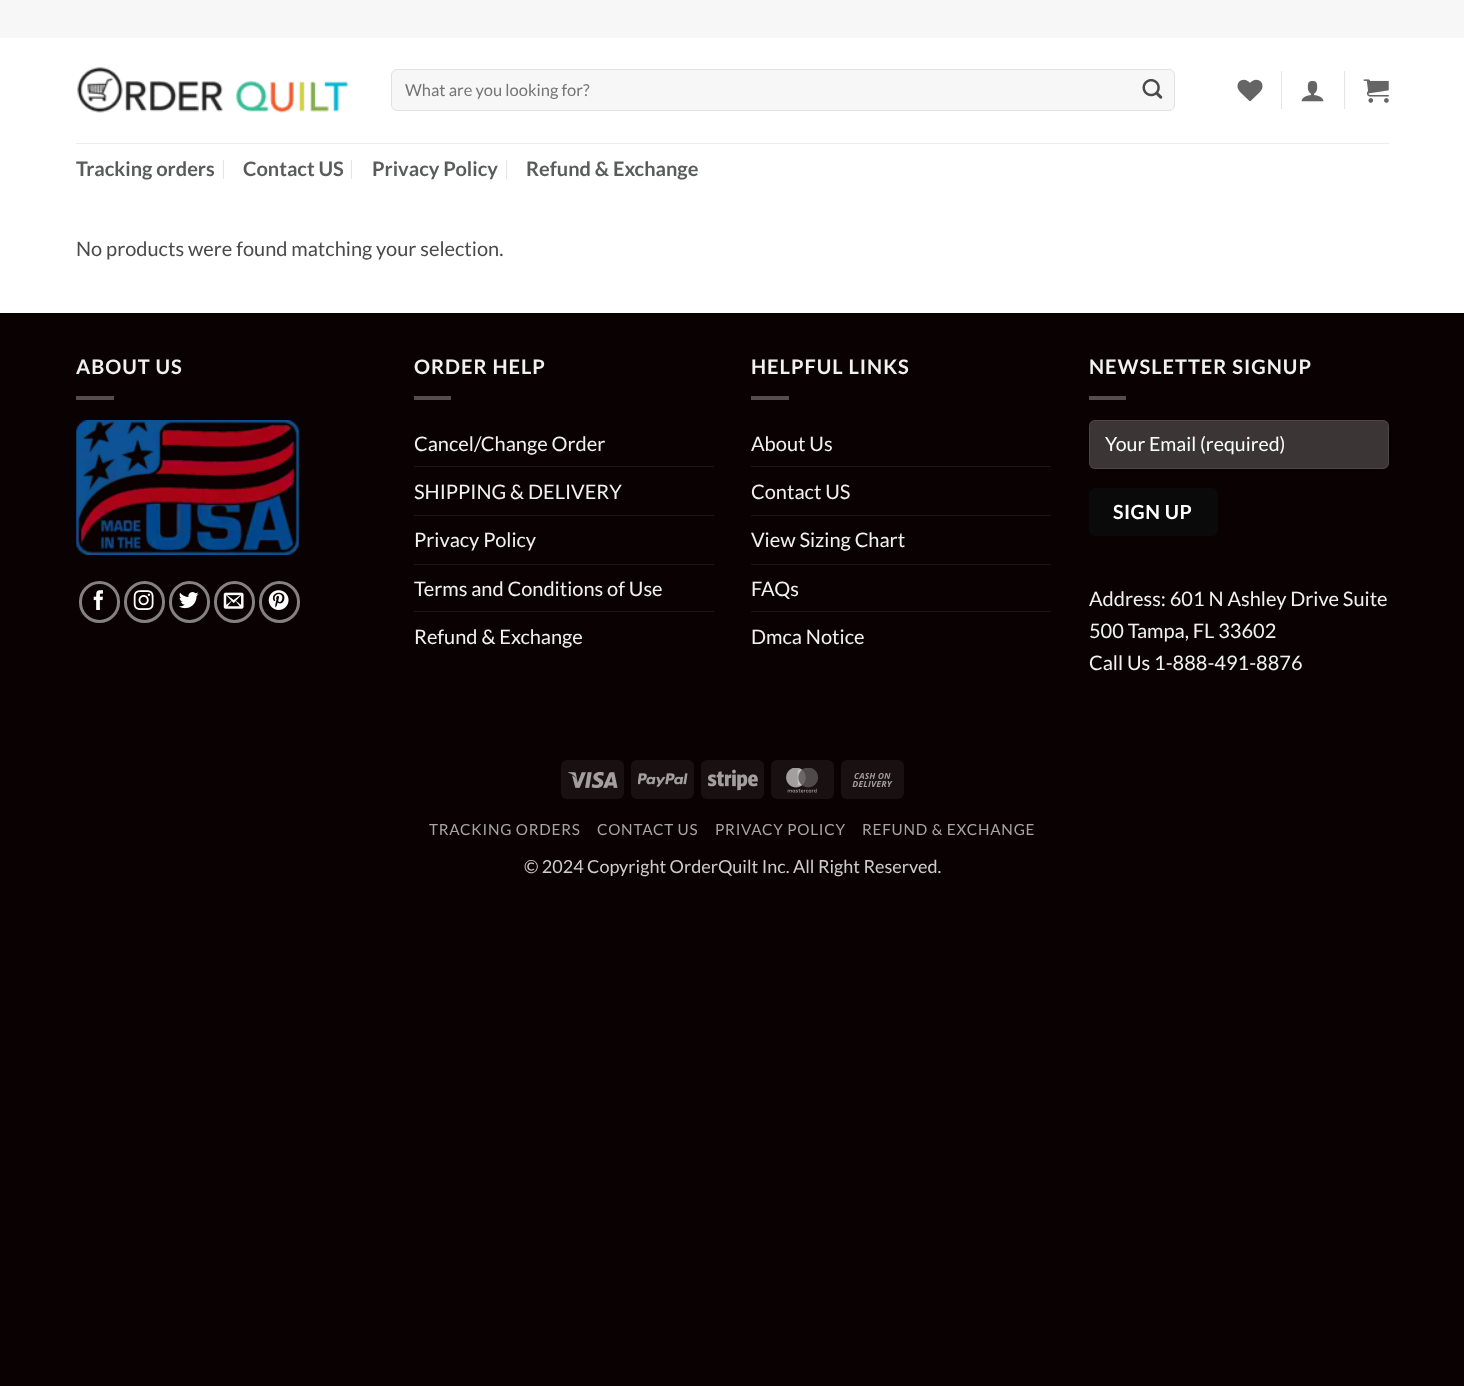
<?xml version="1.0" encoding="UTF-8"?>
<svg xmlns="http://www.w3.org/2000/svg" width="1464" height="1386">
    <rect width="100%" height="100%" fill="#0A0202"/>
    <rect x="0" y="38" width="1464" height="275" fill="#FFFFFF"/>
    <rect x="0" y="0" width="1464" height="38" fill="#F7F7F7"/>
    <image x="77" y="67" width="272" height="46" href="img_01.png"/>
    <rect x="391.5" y="69.5" width="783" height="41" rx="5.5" fill="#F7F7F7" stroke="#E1E1E1"/>
    <text x="405" y="96" font-family="Lato" font-size="16.5" fill="#757575">What are you looking for?</text>
    <image x="1142" y="78" width="21" height="21" href="img_02.png"/>
    <image x="1237" y="79" width="26" height="23" href="img_03.png"/>
    <rect x="1281" y="71" width="1" height="38" fill="#E6E6E6"/>
    <image x="1301" y="80" width="23" height="22" href="img_04.png"/>
    <rect x="1344" y="71" width="1" height="38" fill="#E6E6E6"/>
    <image x="1363" y="79" width="26" height="24" href="img_05.png"/>
    <rect x="76" y="143" width="1313" height="1" fill="#EDEDED"/>
    <text x="76" y="176" font-family="Lato" font-size="20" font-weight="700" fill="#5A5C5C">Tracking orders</text>
    <rect x="223" y="160" width="1" height="19" fill="#E6E6E6"/>
    <text x="243" y="176" font-family="Lato" font-size="20" font-weight="700" fill="#5A5C5C">Contact US</text>
    <rect x="351" y="160" width="1" height="19" fill="#E6E6E6"/>
    <text x="372" y="176" font-family="Lato" font-size="20" font-weight="700" fill="#5A5C5C">Privacy Policy</text>
    <rect x="506" y="160" width="1" height="19" fill="#E6E6E6"/>
    <text x="526" y="176" font-family="Lato" font-size="20" font-weight="700" fill="#5A5C5C">Refund &amp; Exchange</text>
    <text x="76" y="256" font-family="Lato" font-size="20" fill="#4A4A4A">No products were found matching your selection.</text>
    <text x="76" y="374" font-family="Lato" font-size="20" font-weight="700" letter-spacing="1" fill="#F1F1F1">ABOUT US</text>
    <rect x="76" y="396" width="38" height="4" fill="#544E4E"/>
    <image x="76" y="420" width="223" height="135" href="img_06.png"/>
    <rect x="80.5" y="582.5" width="38" height="39" rx="19" fill="none" stroke="#858181" stroke-width="3"/>
    <image x="93" y="590" width="10" height="20" href="img_07.png"/>
    <rect x="125.5" y="582.5" width="38" height="39" rx="19" fill="none" stroke="#858181" stroke-width="3"/>
    <image x="133" y="590" width="21" height="20" href="img_08.png"/>
    <rect x="170.5" y="582.5" width="38" height="39" rx="19" fill="none" stroke="#858181" stroke-width="3"/>
    <image x="179" y="592" width="20" height="17" href="img_09.png"/>
    <rect x="215.5" y="582.5" width="38" height="39" rx="19" fill="none" stroke="#858181" stroke-width="3"/>
    <image x="223" y="592" width="21" height="17" href="img_10.png"/>
    <rect x="260.5" y="582.5" width="38" height="39" rx="19" fill="none" stroke="#858181" stroke-width="3"/>
    <image x="268" y="590" width="21" height="20" href="img_11.png"/>
    <text x="414" y="374" font-family="Lato" font-size="20" font-weight="700" letter-spacing="1" fill="#F1F1F1">ORDER HELP</text>
    <rect x="414" y="396" width="37" height="4" fill="#544E4E"/>
    <text x="414" y="451" font-family="Lato" font-size="20" fill="#F1F1F1">Cancel/Change Order</text>
    <rect x="414" y="466" width="300" height="1" fill="#1E1616"/>
    <text x="414" y="499" font-family="Lato" font-size="20" fill="#F1F1F1">SHIPPING &amp; DELIVERY</text>
    <rect x="414" y="515" width="300" height="1" fill="#1E1616"/>
    <text x="414" y="547" font-family="Lato" font-size="20" fill="#F1F1F1">Privacy Policy</text>
    <rect x="414" y="564" width="300" height="1" fill="#1E1616"/>
    <text x="414" y="596" font-family="Lato" font-size="20" fill="#F1F1F1">Terms and Conditions of Use</text>
    <rect x="414" y="611" width="300" height="1" fill="#1E1616"/>
    <text x="414" y="644" font-family="Lato" font-size="20" fill="#F1F1F1">Refund &amp; Exchange</text>
    <text x="751" y="374" font-family="Lato" font-size="20" font-weight="700" letter-spacing="1" fill="#F1F1F1">HELPFUL LINKS</text>
    <rect x="751" y="396" width="38" height="4" fill="#544E4E"/>
    <text x="751" y="451" font-family="Lato" font-size="20" fill="#F1F1F1">About Us</text>
    <rect x="751" y="466" width="300" height="1" fill="#1E1616"/>
    <text x="751" y="499" font-family="Lato" font-size="20" fill="#F1F1F1">Contact US</text>
    <rect x="751" y="515" width="300" height="1" fill="#1E1616"/>
    <text x="751" y="547" font-family="Lato" font-size="20" fill="#F1F1F1">View Sizing Chart</text>
    <rect x="751" y="564" width="300" height="1" fill="#1E1616"/>
    <text x="751" y="596" font-family="Lato" font-size="20" fill="#F1F1F1">FAQs</text>
    <rect x="751" y="611" width="300" height="1" fill="#1E1616"/>
    <text x="751" y="644" font-family="Lato" font-size="20" fill="#F1F1F1">Dmca Notice</text>
    <text x="1089" y="374" font-family="Lato" font-size="20" font-weight="700" letter-spacing="1" fill="#F1F1F1">NEWSLETTER SIGNUP</text>
    <rect x="1089" y="396" width="37" height="4" fill="#544E4E"/>
    <rect x="1089" y="420" width="300" height="49" rx="6" fill="#3B3535"/>
    <rect x="1089.5" y="420.5" width="299" height="48" rx="5.5" fill="none" stroke="#FFFFFF" stroke-opacity="0.09"/>
    <text x="1105" y="451" font-family="Lato" font-size="19.5" fill="#FFFFFF">Your Email (required)</text>
    <rect x="1089" y="488" width="129" height="48" rx="6" fill="#0A0A0A"/>
    <text x="1113" y="519" font-family="Lato" font-size="19.5" font-weight="700" letter-spacing="0.5" fill="#FFFFFF">SIGN UP</text>
    <text font-family="Lato" font-size="20" fill="#F1F1F1">
        <tspan x="1089" y="606">Address: 601 N Ashley Drive Suite</tspan>
        <tspan x="1089" y="638">500 Tampa, FL 33602</tspan>
        <tspan x="1089" y="670">Call Us 1-888-491-8876</tspan>
    </text>
    <rect x="561" y="760" width="63" height="39" rx="6" fill="#191111"/>
    <image x="568" y="771" width="50" height="18" href="img_12.png"/>
    <rect x="631" y="760" width="63" height="39" rx="6" fill="#191111"/>
    <image x="638" y="773" width="50" height="14" href="img_13.png"/>
    <rect x="701" y="760" width="63" height="39" rx="6" fill="#191111"/>
    <image x="708" y="769" width="50" height="22" href="img_14.png"/>
    <rect x="771" y="760" width="63" height="39" rx="6" fill="#191111"/>
    <image x="786" y="768" width="33" height="25" href="img_15.png"/>
    <rect x="841" y="760" width="63" height="39" rx="6" fill="#191111"/>
    <image x="852" y="773" width="41" height="14" href="img_16.png"/>
    <text x="429" y="835" font-family="Lato" font-size="15.25" letter-spacing="0.75" fill="#A7A4A4">TRACKING ORDERS</text>
    <text x="597" y="835" font-family="Lato" font-size="15.25" letter-spacing="0.75" fill="#A7A4A4">CONTACT US</text>
    <text x="715" y="835" font-family="Lato" font-size="15.25" letter-spacing="0.75" fill="#A7A4A4">PRIVACY POLICY</text>
    <text x="862" y="835" font-family="Lato" font-size="15.25" letter-spacing="0.75" fill="#A7A4A4">REFUND &amp; EXCHANGE</text>
    <text x="524" y="873" font-family="Lato" font-size="18" fill="#CECCCC">© 2024 Copyright OrderQuilt Inc. All Right Reserved.</text>
</svg>
